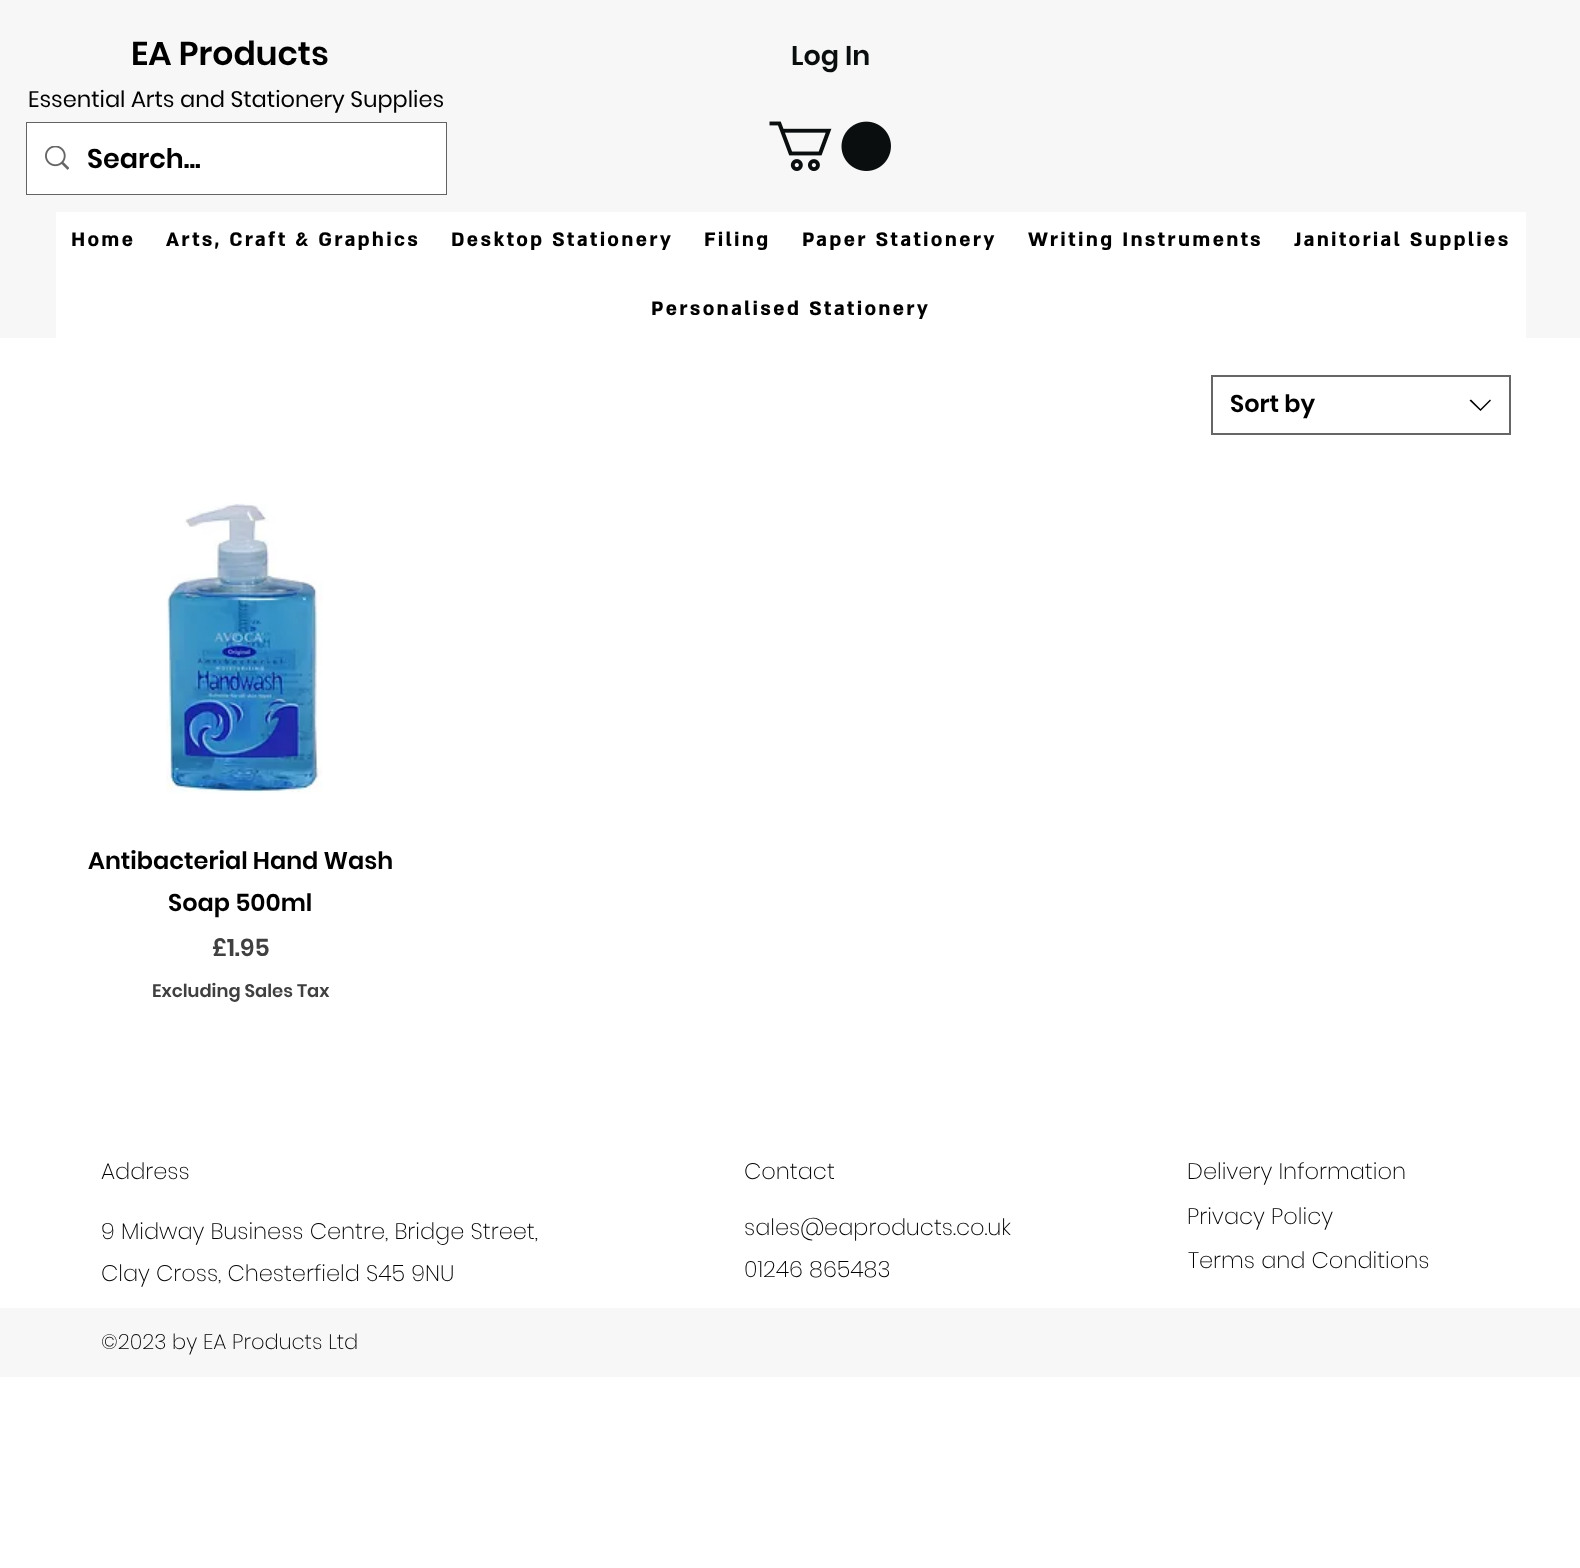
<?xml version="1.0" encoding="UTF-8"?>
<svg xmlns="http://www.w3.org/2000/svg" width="1580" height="1568">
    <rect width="100%" height="100%" fill="#FFFFFF"/>
    <rect x="0" y="0" width="1580" height="338" fill="#F7F7F7"/>
    <text x="131" y="65" font-family="Poppins" font-size="33" font-weight="600" fill="#000000">EA Products</text>
    <text x="791" y="65" font-family="Poppins" font-size="27" font-weight="600" fill="#0B0E0F">Log In</text>
    <text x="28" y="107" font-family="Poppins" font-size="22.5" fill="#000000">Essential Arts and Stationery Supplies</text>
    <rect x="27" y="123" width="419" height="71" fill="none" stroke="#636363" stroke-width="2"/>
    <rect x="27" y="123" width="419" height="71" fill="#FFFFFF"/>
    <image x="45" y="146" width="24" height="24" href="img_01.png"/>
    <text x="87" y="168" font-family="Poppins" font-size="27" font-weight="600" fill="#000000">Search...</text>
    <image x="769" y="121" width="122" height="50" href="img_02.png"/>
    <rect x="56" y="212" width="1470" height="126" fill="#FFFFFF"/>
    <text x="71" y="246" font-family="'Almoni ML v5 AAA'" font-size="22.5" font-weight="700" letter-spacing="2.25" fill="#000000">Home</text>
    <text x="166" y="246" font-family="'Almoni ML v5 AAA'" font-size="22.5" font-weight="700" letter-spacing="2.25" fill="#000000">Arts, Craft &amp; Graphics</text>
    <text x="451" y="246" font-family="'Almoni ML v5 AAA'" font-size="22.5" font-weight="700" letter-spacing="2.25" fill="#000000">Desktop Stationery</text>
    <text x="704" y="246" font-family="'Almoni ML v5 AAA'" font-size="22.5" font-weight="700" letter-spacing="2.25" fill="#000000">Filing</text>
    <text x="802" y="246" font-family="'Almoni ML v5 AAA'" font-size="22.5" font-weight="700" letter-spacing="2.25" fill="#000000">Paper Stationery</text>
    <text x="1028" y="246" font-family="'Almoni ML v5 AAA'" font-size="22.5" font-weight="700" letter-spacing="2.25" fill="#000000">Writing Instruments</text>
    <text x="1294" y="246" font-family="'Almoni ML v5 AAA'" font-size="22.5" font-weight="700" letter-spacing="2.25" fill="#000000">Janitorial Supplies</text>
    <text x="651" y="315" font-family="'Almoni ML v5 AAA'" font-size="22.5" font-weight="700" letter-spacing="2.25" fill="#000000">Personalised Stationery</text>
    <rect x="1212" y="376" width="298" height="58" fill="none" stroke="#666666" stroke-width="2"/>
    <text x="1230" y="412" font-family="Poppins" font-size="24" font-weight="600" fill="#000000">Sort by</text>
    <path d="M 1490 399.5 L 1491 400.5 L 1480.5 411 L 1469.5 400.5 L 1471 399.5 L 1480.5 409 Z" fill="#000000" fill-rule="evenodd"/>
    <image x="166" y="503" width="157" height="290" href="img_03.png"/>
    <text x="88" y="869" font-family="Poppins" font-size="24" font-weight="600" fill="#000000">Antibacterial Hand Wash</text>
    <text x="168" y="911" font-family="Poppins" font-size="24" font-weight="600" fill="#000000">Soap 500ml</text>
    <text x="212" y="956" font-family="Poppins" font-size="24" font-weight="600" fill="#404040">£1.95</text>
    <text x="152" y="997" font-family="Poppins" font-size="18" font-weight="600" fill="#404040">Excluding Sales Tax</text>
    <text x="101" y="1179" font-family="Poppins" font-size="22.5" font-weight="200" fill="#000000">Address</text>
    <text x="744" y="1179" font-family="Poppins" font-size="22.5" font-weight="200" fill="#000000">Contact</text>
    <text x="1187" y="1179" font-family="Poppins" font-size="22.5" font-weight="200" fill="#000000">Delivery Information</text>
    <text font-family="Poppins" font-size="22.5" font-weight="200" fill="#000000">
        <tspan x="101" y="1239">9 Midway Business Centre, Bridge Street,</tspan>
        <tspan x="101" y="1281">Clay Cross, Chesterfield S45 9NU</tspan>
    </text>
    <text font-family="Poppins" font-size="22.5" font-weight="200" fill="#000000">
        <tspan x="744" y="1235">sales@eaproducts.co.uk</tspan>
        <tspan x="744" y="1277">01246 865483</tspan>
    </text>
    <text x="1187" y="1224" font-family="Poppins" font-size="22.5" font-weight="200" fill="#000000">Privacy Policy</text>
    <text x="1188" y="1268" font-family="Poppins" font-size="22.5" font-weight="200" fill="#000000">Terms and Conditions</text>
    <rect x="0" y="1308" width="1580" height="69" fill="#F7F7F7"/>
    <text x="101" y="1349" font-family="Poppins" font-size="21" font-weight="200" fill="#000000">©2023 by EA Products Ltd</text>
</svg>
